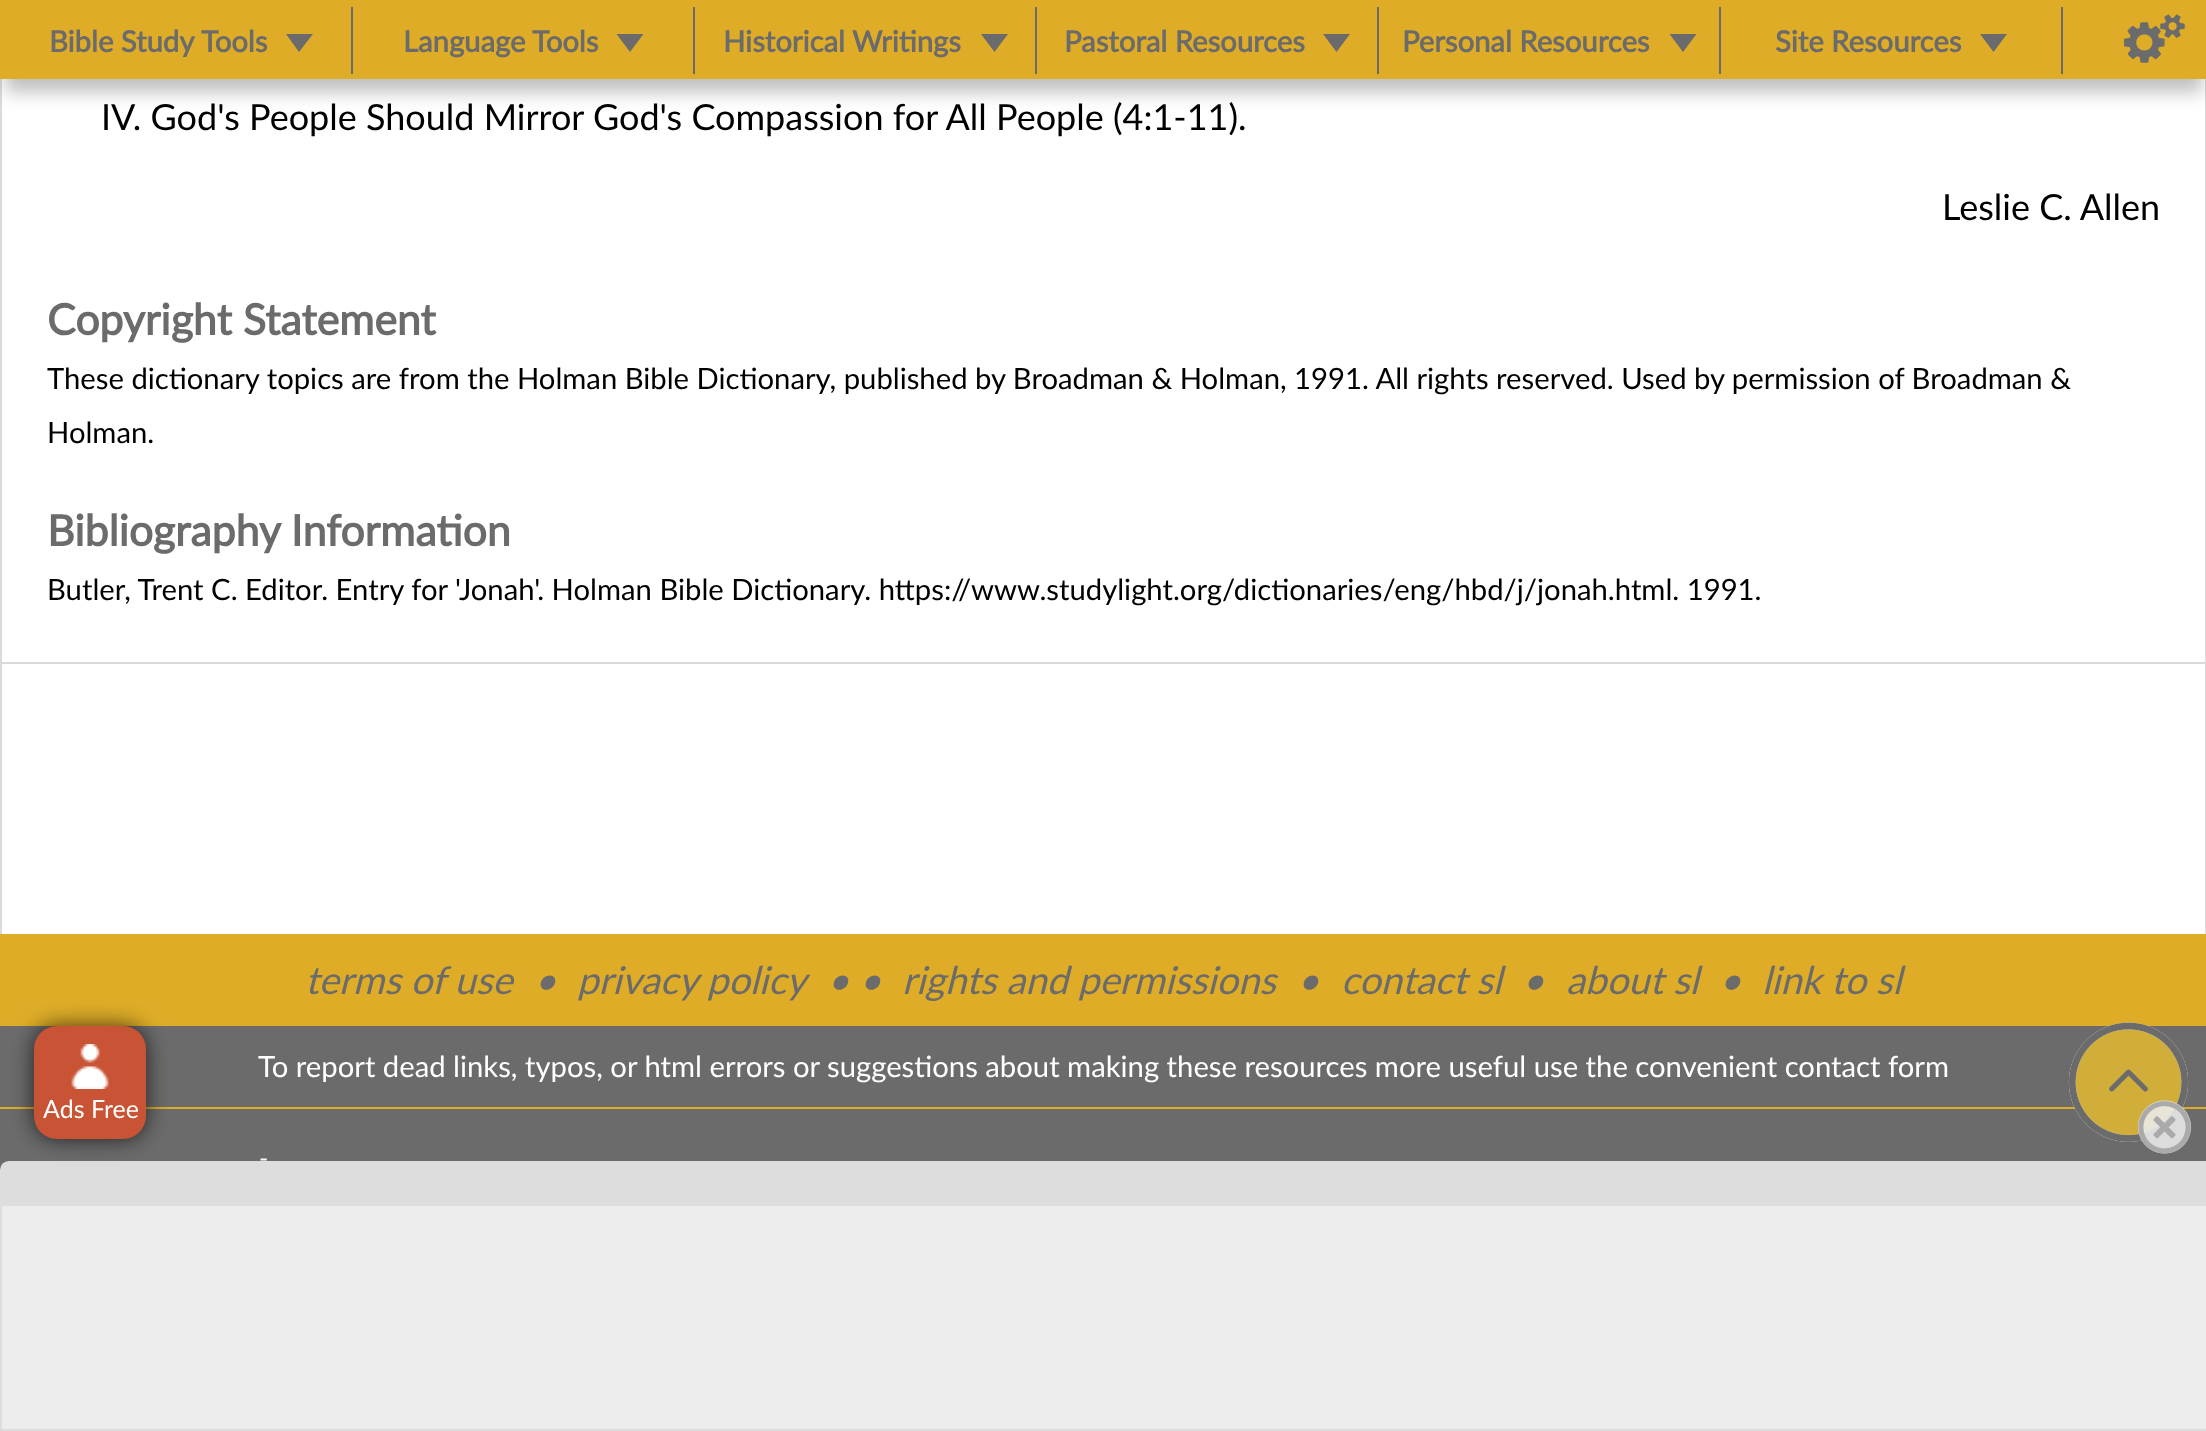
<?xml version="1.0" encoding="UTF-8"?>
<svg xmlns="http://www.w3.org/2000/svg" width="2206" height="1431">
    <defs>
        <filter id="blur1" x="-50%" y="-200%" width="200%" height="500%"><feGaussianBlur stdDeviation="9"/></filter>
        <filter id="blur2" x="-50%" y="-200%" width="200%" height="500%"><feGaussianBlur stdDeviation="11"/></filter>
    </defs>
    <rect width="100%" height="100%" fill="#FFFFFF"/>
    <rect x="1" y="-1" width="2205" height="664" fill="none" stroke="#DADADA" stroke-width="2"/>
    <rect x="5" y="23" width="2198" height="69" fill="#000000" fill-opacity="0.25" filter="url(#blur1)"/>
    <rect x="0" y="0" width="2206" height="79" fill="#DEAC27"/>
    <text x="49" y="52" font-family="Lato" font-size="29.25" font-weight="700" fill="#6B6B6B">Bible Study</text>
    <text x="201" y="52" font-family="Lato" font-size="29.25" font-weight="700" fill="#6B6B6B">Tools</text>
    <path d="M 286 34 H 313 L 299 52 Z" fill="#6B6B6B"/>
    <rect x="351" y="7" width="2" height="67" fill="#6B6B6B"/>
    <text x="403" y="52" font-family="Lato" font-size="29.25" font-weight="700" fill="#6B6B6B">Language Tools</text>
    <path d="M 616.5 34 H 643.5 L 630 52 Z" fill="#6B6B6B"/>
    <rect x="693" y="7" width="2" height="67" fill="#6B6B6B"/>
    <text x="723" y="52" font-family="Lato" font-size="29.25" font-weight="700" fill="#6B6B6B">Historical Writings</text>
    <path d="M 981 34 H 1008 L 994.5 52 Z" fill="#6B6B6B"/>
    <rect x="1035" y="7" width="2" height="67" fill="#6B6B6B"/>
    <text x="1064" y="52" font-family="Lato" font-size="29.25" font-weight="700" fill="#6B6B6B">Pastoral Resources</text>
    <path d="M 1323 34 H 1350 L 1336.5 52 Z" fill="#6B6B6B"/>
    <rect x="1377" y="7" width="2" height="67" fill="#6B6B6B"/>
    <text x="1402" y="52" font-family="Lato" font-size="29.25" font-weight="700" fill="#6B6B6B">Personal Resources</text>
    <path d="M 1669.5 34 H 1696.5 L 1683 52 Z" fill="#6B6B6B"/>
    <rect x="1719" y="7" width="2" height="67" fill="#6B6B6B"/>
    <text x="1775" y="52" font-family="Lato" font-size="29.25" font-weight="700" fill="#6B6B6B">Site Resources</text>
    <path d="M 1980 34 H 2007 L 1993.5 52 Z" fill="#6B6B6B"/>
    <rect x="2061" y="7" width="2" height="67" fill="#6B6B6B"/>
    <image x="2124" y="14" width="61" height="49" href="img_01.png"/>
    <text x="101" y="130" font-family="Lato" font-size="36" fill="#000000">IV. God's People Should Mirror God's Compassion for All People (4:1-11).</text>
    <text x="1942" y="220" font-family="Lato" font-size="36" fill="#000000">Leslie C. Allen</text>
    <text x="47" y="335" font-family="Lato" font-size="42.75" font-weight="700" fill="#6B6B6B">Copyright Statement</text>
    <text font-family="Lato" font-size="29.25" fill="#000000">
        <tspan x="47" y="389">These dictionary topics are from the Holman Bible Dictionary, published by Broadman &amp; Holman, 1991. All rights reserved. Used by permission of Broadman &amp;</tspan>
        <tspan x="47" y="443">Holman.</tspan>
    </text>
    <text x="47" y="546" font-family="Lato" font-size="42.75" font-weight="700" fill="#6B6B6B">Bibliography Information</text>
    <text x="47" y="600" font-family="Lato" font-size="29.25" fill="#000000">Butler, Trent C. Editor. Entry for 'Jonah'. Holman Bible Dictionary. https://www.studylight.org/dictionaries/eng/hbd/j/jonah.html. 1991.</text>
    <rect x="2205" y="664" width="1" height="270" fill="#DADADA"/>
    <rect x="0" y="664" width="2" height="270" fill="#DADADA"/>
    <rect x="0" y="1026" width="2206" height="180" fill="#6B6B6B"/>
    <rect x="0" y="934" width="2206" height="92" fill="#DEAC27"/>
    <text x="305" y="994" font-family="Lato" font-size="38.25" font-style="italic" fill="#6B6B6B">terms of use</text>
    <text x="534" y="994" font-family="Lato" font-size="38.25" font-style="italic" fill="#6B6B6B">•</text>
    <text x="577" y="994" font-family="Lato" font-size="38.25" font-style="italic" fill="#6B6B6B">privacy policy</text>
    <text x="827" y="994" font-family="Lato" font-size="38.25" font-style="italic" fill="#6B6B6B">• •</text>
    <text x="902" y="994" font-family="Lato" font-size="38.25" font-style="italic" fill="#6B6B6B">rights and permissions</text>
    <text x="1297" y="994" font-family="Lato" font-size="38.25" font-style="italic" fill="#6B6B6B">•</text>
    <text x="1341" y="994" font-family="Lato" font-size="38.25" font-style="italic" fill="#6B6B6B">contact sl</text>
    <text x="1522" y="994" font-family="Lato" font-size="38.25" font-style="italic" fill="#6B6B6B">•</text>
    <text x="1566" y="994" font-family="Lato" font-size="38.25" font-style="italic" fill="#6B6B6B">about sl</text>
    <text x="1719" y="994" font-family="Lato" font-size="38.25" font-style="italic" fill="#6B6B6B">•</text>
    <text x="1762" y="994" font-family="Lato" font-size="38.25" font-style="italic" fill="#6B6B6B">link to sl</text>
    <rect x="0" y="1107" width="2206" height="2" fill="#DEAC27"/>
    <text x="258" y="1077" font-family="Lato" font-size="29.25" fill="#FFFFFF">To report dead links, typos, or html errors or suggestions about making these resources more useful use the convenient contact form</text>
    <text x="259" y="1167" font-family="Lato" font-size="25" fill="#FFFFFF">-</text>
    <path d="M 9 1162 H 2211 V 1430 H 1 V 1170 C 1 1165.5 4.5 1162 9 1162 Z" fill="#EBEBEB" fill-opacity="0.89" stroke="#DDDDDD" stroke-width="2"/>
    <rect x="34" y="1026" width="112" height="113" rx="23" fill="#000000" fill-opacity="0.7" filter="url(#blur2)"/>
    <rect x="34" y="1026" width="112" height="113" rx="23" fill="#C85335"/>
    <image x="71" y="1044" width="38" height="45" href="img_02.png"/>
    <text x="43" y="1118" font-family="Lato" font-size="25" fill="#FFFFFF">Ads Free</text>
    <image x="2068" y="1022" width="121" height="120" href="img_03.png"/>
    <image x="2109" y="1069" width="39" height="23" href="img_04.png"/>
    <image x="2138" y="1100" width="53" height="54" href="img_05.png"/>
</svg>
